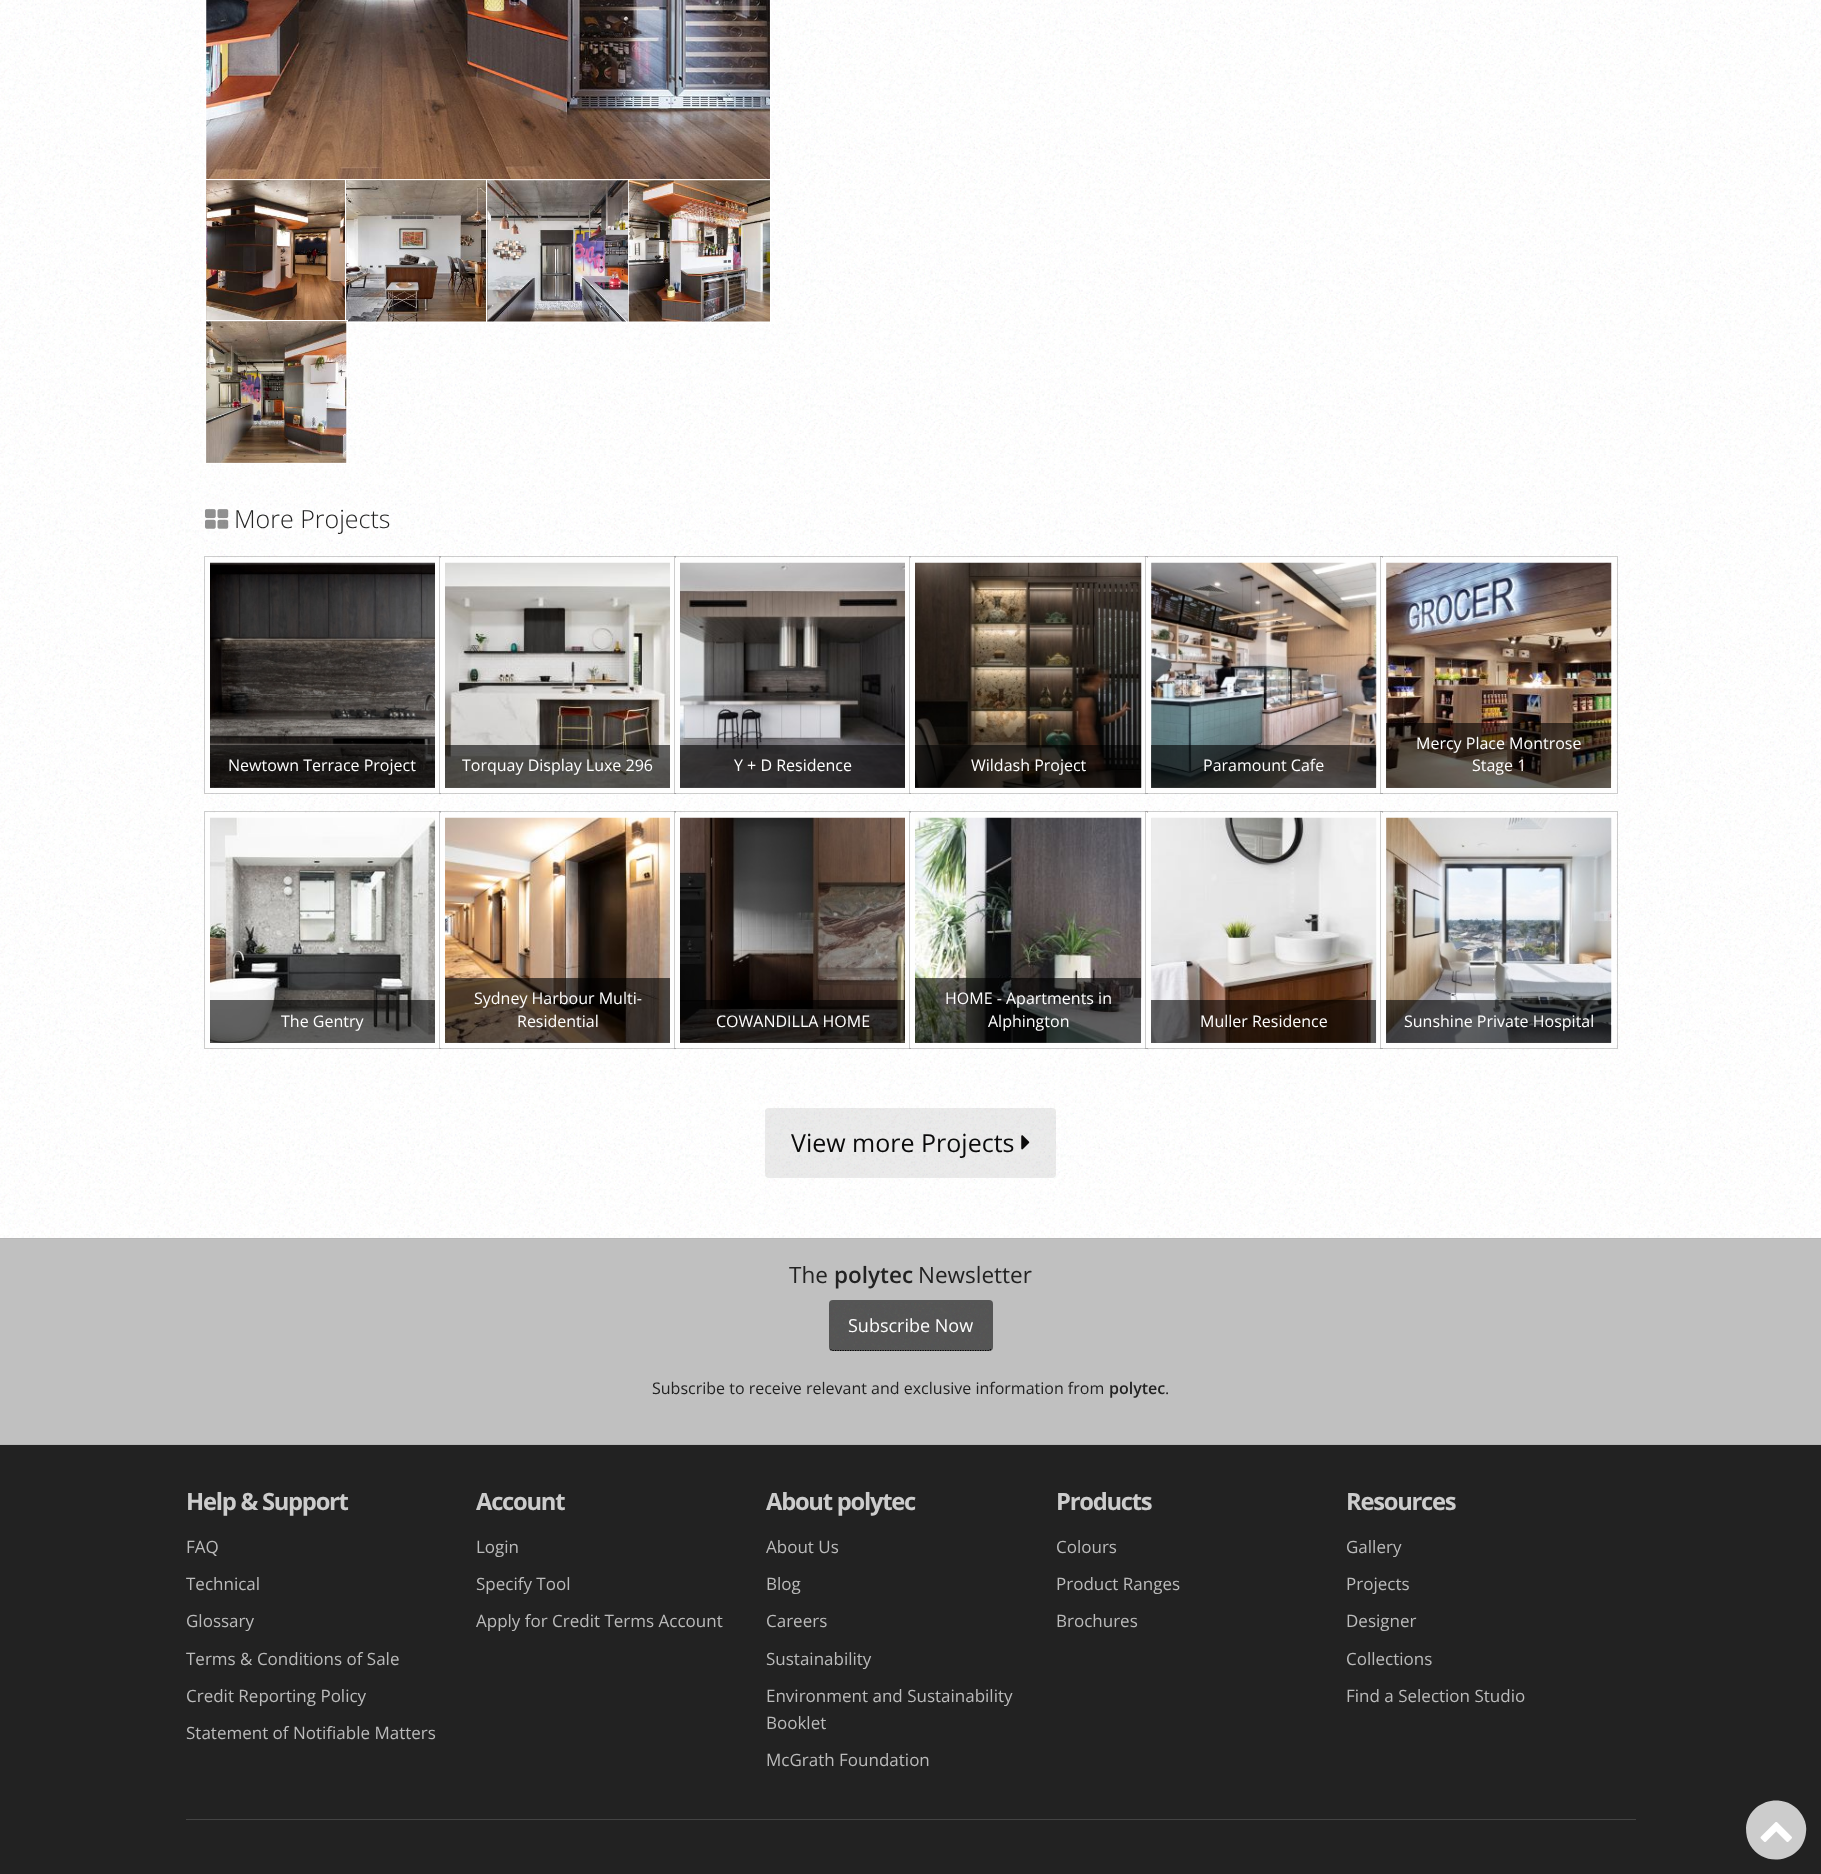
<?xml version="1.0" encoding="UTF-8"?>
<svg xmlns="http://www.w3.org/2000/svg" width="1821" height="1874">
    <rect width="100%" height="100%" fill="#FFFFFF"/>
    <image x="0" y="0" width="1821" height="1238" href="img_01.png"/>
    <rect x="205.5" y="-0.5" width="565" height="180" fill="none" stroke="#FFFFFF"/>
    <image x="206" y="0" width="564" height="179" href="img_02.png"/>
    <rect x="205.5" y="179.5" width="142" height="143" fill="none" stroke="#FFFFFF"/>
    <rect x="206" y="180" width="139" height="140" fill="#826A5A" fill-opacity="0.5"/>
    <image x="206" y="180" width="141" height="142" href="img_03.png"/>
    <rect x="345.5" y="179.5" width="143" height="143" fill="none" stroke="#FFFFFF"/>
    <rect x="346" y="180" width="142" height="141" fill="#90837B" fill-opacity="0.5"/>
    <image x="346" y="180" width="142" height="142" href="img_04.png"/>
    <rect x="486.5" y="179.5" width="143" height="143" fill="none" stroke="#FFFFFF"/>
    <image x="487" y="180" width="141" height="142" href="img_05.png"/>
    <rect x="628.5" y="179.5" width="142" height="143" fill="none" stroke="#FFFFFF"/>
    <image x="628" y="180" width="142" height="142" href="img_06.png"/>
    <rect x="205.5" y="320.5" width="142" height="143" fill="none" stroke="#FFFFFF"/>
    <rect x="206" y="321" width="140" height="142" fill="#9A8D83" fill-opacity="0.5"/>
    <image x="206" y="321" width="141" height="142" href="img_07.png"/>
    <image x="205" y="509" width="24" height="20" href="img_08.png"/>
    <text x="234" y="528" font-family="Open Sans" font-size="25" font-weight="300" fill="#222222">More Projects</text>
    <rect x="204.5" y="556.5" width="236" height="237" fill="none" stroke="#0A0A0A" stroke-opacity="0.2"/>
    <rect x="207.5" y="560.5" width="230" height="230" fill="none" stroke="#FEFEFE" stroke-width="5"/>
    <image x="210" y="562" width="225" height="226" href="img_09.png"/>
    <rect x="210" y="745" width="225" height="43" fill="#000000" fill-opacity="0.6"/>
    <text x="228" y="771" font-family="Open Sans" font-size="16" fill="#FEFEFE">Newtown Terrace Project</text>
    <rect x="439.5" y="556.5" width="236" height="237" fill="none" stroke="#0A0A0A" stroke-opacity="0.2"/>
    <rect x="442.5" y="560.5" width="230" height="230" fill="none" stroke="#FEFEFE" stroke-width="5"/>
    <image x="445" y="562" width="225" height="226" href="img_10.png"/>
    <rect x="445" y="745" width="225" height="43" fill="#000000" fill-opacity="0.6"/>
    <text x="462" y="771" font-family="Open Sans" font-size="16" fill="#FEFEFE">Torquay Display Luxe 296</text>
    <rect x="674.5" y="556.5" width="236" height="237" fill="none" stroke="#0A0A0A" stroke-opacity="0.2"/>
    <rect x="677.5" y="560.5" width="230" height="230" fill="none" stroke="#FEFEFE" stroke-width="5"/>
    <image x="680" y="562" width="225" height="226" href="img_11.png"/>
    <rect x="680" y="745" width="225" height="43" fill="#000000" fill-opacity="0.6"/>
    <text x="734" y="771" font-family="Open Sans" font-size="16" fill="#FEFEFE">Y + D Residence</text>
    <rect x="909.5" y="556.5" width="238" height="237" fill="none" stroke="#0A0A0A" stroke-opacity="0.2"/>
    <rect x="912.5" y="560.5" width="231" height="230" fill="none" stroke="#FEFEFE" stroke-width="5"/>
    <image x="915" y="562" width="227" height="226" href="img_12.png"/>
    <rect x="915" y="745" width="226" height="43" fill="#000000" fill-opacity="0.6"/>
    <text x="971" y="771" font-family="Open Sans" font-size="16" fill="#FEFEFE">Wildash Project</text>
    <rect x="1145.5" y="556.5" width="237" height="237" fill="none" stroke="#0A0A0A" stroke-opacity="0.2"/>
    <rect x="1148.5" y="560.5" width="230" height="230" fill="#E4E4E4" stroke="#FEFEFE" stroke-width="5"/>
    <image x="1151" y="562" width="226" height="226" href="img_13.png"/>
    <rect x="1151" y="745" width="225" height="43" fill="#000000" fill-opacity="0.6"/>
    <text x="1203" y="771" font-family="Open Sans" font-size="16" fill="#FEFEFE">Paramount Cafe</text>
    <rect x="1380.5" y="556.5" width="237" height="237" fill="none" stroke="#0A0A0A" stroke-opacity="0.2"/>
    <rect x="1383.5" y="560.5" width="230" height="230" fill="#E4E4E4" stroke="#FEFEFE" stroke-width="5"/>
    <image x="1386" y="562" width="226" height="226" href="img_14.png"/>
    <rect x="1386" y="723" width="225" height="65" fill="#000000" fill-opacity="0.6"/>
    <text x="1416" y="749" font-family="Open Sans" font-size="16" fill="#FEFEFE">Mercy Place Montrose</text>
    <text x="1472" y="771" font-family="Open Sans" font-size="16" fill="#FEFEFE">Stage 1</text>
    <rect x="204.5" y="811.5" width="236" height="237" fill="none" stroke="#0A0A0A" stroke-opacity="0.2"/>
    <rect x="207.5" y="815.5" width="230" height="230" fill="none" stroke="#FEFEFE" stroke-width="5"/>
    <image x="210" y="817" width="225" height="226" href="img_15.png"/>
    <rect x="210" y="1000" width="225" height="43" fill="#000000" fill-opacity="0.6"/>
    <text x="281" y="1027" font-family="Open Sans" font-size="16" fill="#FEFEFE">The Gentry</text>
    <rect x="439.5" y="811.5" width="236" height="237" fill="none" stroke="#0A0A0A" stroke-opacity="0.2"/>
    <rect x="442.5" y="815.5" width="230" height="230" fill="none" stroke="#FEFEFE" stroke-width="5"/>
    <image x="445" y="817" width="225" height="226" href="img_16.png"/>
    <rect x="445" y="978" width="225" height="65" fill="#000000" fill-opacity="0.6"/>
    <text x="474" y="1004" font-family="Open Sans" font-size="16" fill="#FEFEFE">Sydney Harbour Multi-</text>
    <text x="517" y="1027" font-family="Open Sans" font-size="16" fill="#FEFEFE">Residential</text>
    <rect x="674.5" y="811.5" width="236" height="237" fill="none" stroke="#0A0A0A" stroke-opacity="0.2"/>
    <rect x="677.5" y="815.5" width="230" height="230" fill="none" stroke="#FEFEFE" stroke-width="5"/>
    <image x="680" y="817" width="225" height="226" href="img_17.png"/>
    <rect x="680" y="1000" width="225" height="43" fill="#000000" fill-opacity="0.6"/>
    <text x="716" y="1027" font-family="Open Sans" font-size="16" fill="#FEFEFE">COWANDILLA HOME</text>
    <rect x="909.5" y="811.5" width="238" height="237" fill="none" stroke="#0A0A0A" stroke-opacity="0.2"/>
    <rect x="912.5" y="815.5" width="231" height="230" fill="none" stroke="#FEFEFE" stroke-width="5"/>
    <image x="915" y="817" width="227" height="226" href="img_18.png"/>
    <rect x="915" y="978" width="226" height="65" fill="#000000" fill-opacity="0.6"/>
    <text x="945" y="1004" font-family="Open Sans" font-size="16" fill="#FEFEFE">HOME - Apartments in</text>
    <text x="988" y="1027" font-family="Open Sans" font-size="16" fill="#FEFEFE">Alphington</text>
    <rect x="1145.5" y="811.5" width="237" height="237" fill="none" stroke="#0A0A0A" stroke-opacity="0.2"/>
    <rect x="1148.5" y="815.5" width="230" height="230" fill="#E4E4E4" stroke="#FEFEFE" stroke-width="5"/>
    <image x="1151" y="817" width="226" height="226" href="img_19.png"/>
    <rect x="1151" y="1000" width="225" height="43" fill="#000000" fill-opacity="0.6"/>
    <text x="1200" y="1027" font-family="Open Sans" font-size="16" fill="#FEFEFE">Muller Residence</text>
    <rect x="1380.5" y="811.5" width="237" height="237" fill="none" stroke="#0A0A0A" stroke-opacity="0.2"/>
    <rect x="1383.5" y="815.5" width="230" height="230" fill="#E4E4E4" stroke="#FEFEFE" stroke-width="5"/>
    <image x="1386" y="817" width="226" height="226" href="img_20.png"/>
    <rect x="1386" y="1000" width="225" height="43" fill="#000000" fill-opacity="0.6"/>
    <text x="1404" y="1027" font-family="Open Sans" font-size="16" fill="#FEFEFE">Sunshine Private Hospital</text>
    <rect x="765" y="1108" width="291" height="70" rx="4" fill="#EBEBEB"/>
    <image x="765" y="1108" width="291" height="70" href="img_21.png"/>
    <text x="791" y="1152" font-family="Open Sans" font-size="25" fill="#0A0A0A">View more Projects</text>
    <image x="1021" y="1135" width="9" height="15" href="img_22.png"/>
    <rect x="0" y="1239" width="1821" height="205" fill="#C0C0C0"/>
    <rect x="0" y="1238" width="1821" height="1" fill="#B7B7B7"/>
    <rect x="0" y="1444" width="1821" height="1" fill="#B7B7B7"/>
    <text x="789" y="1283" font-family="Open Sans" font-size="22.5" fill="#222222">The</text>
    <text x="834" y="1283" font-family="Open Sans" font-size="22.5" font-weight="600" fill="#222222">polytec</text>
    <text x="918" y="1283" font-family="Open Sans" font-size="22.5" fill="#222222">Newsletter</text>
    <rect x="829" y="1300" width="164" height="51" rx="4" fill="#555555"/>
    <image x="829" y="1302" width="161" height="48" href="img_23.png"/>
    <path d="M 991 1349.5 L 989 1350.5 H 832 L 830.5 1349.5" fill="none" stroke="#000000" stroke-width="1.2" stroke-dasharray="1.25 1.25"/>
    <text x="848" y="1332" font-family="Open Sans" font-size="18" fill="#FEFEFE">Subscribe Now</text>
    <text x="652" y="1394" font-family="Open Sans" font-size="16" fill="#222222">Subscribe to receive relevant and exclusive information from</text>
    <text x="1109" y="1394" font-family="Open Sans" font-size="16" font-weight="600" fill="#222222">polytec</text>
    <text x="1165" y="1394" font-family="Open Sans" font-size="16" fill="#222222">.</text>
    <rect x="0" y="1445" width="1821" height="429" fill="#222222"/>
    <text x="186" y="1510" font-family="Open Sans" font-size="23.75" font-weight="700" letter-spacing="-1.25" fill="#CCCCCC">Help &amp; Support</text>
    <text x="186" y="1553" font-family="Open Sans" font-size="17" fill="#BBBBBB">FAQ</text>
    <text x="186" y="1590" font-family="Open Sans" font-size="17" fill="#BBBBBB">Technical</text>
    <text x="186" y="1627" font-family="Open Sans" font-size="17" fill="#BBBBBB">Glossary</text>
    <text x="186" y="1665" font-family="Open Sans" font-size="17" fill="#BBBBBB">Terms &amp; Conditions of Sale</text>
    <text x="186" y="1702" font-family="Open Sans" font-size="17" fill="#BBBBBB">Credit Reporting Policy</text>
    <text x="186" y="1739" font-family="Open Sans" font-size="17" fill="#BBBBBB">Statement of Notifiable Matters</text>
    <text x="476" y="1510" font-family="Open Sans" font-size="23.75" font-weight="700" letter-spacing="-1.25" fill="#CCCCCC">Account</text>
    <text x="476" y="1553" font-family="Open Sans" font-size="17" fill="#BBBBBB">Login</text>
    <text x="476" y="1590" font-family="Open Sans" font-size="17" fill="#BBBBBB">Specify Tool</text>
    <text x="476" y="1627" font-family="Open Sans" font-size="17" fill="#BBBBBB">Apply for Credit Terms Account</text>
    <text x="766" y="1510" font-family="Open Sans" font-size="23.75" font-weight="700" letter-spacing="-1.25" fill="#CCCCCC">About polytec</text>
    <text x="766" y="1553" font-family="Open Sans" font-size="17" fill="#BBBBBB">About Us</text>
    <text x="766" y="1590" font-family="Open Sans" font-size="17" fill="#BBBBBB">Blog</text>
    <text x="766" y="1627" font-family="Open Sans" font-size="17" fill="#BBBBBB">Careers</text>
    <text x="766" y="1665" font-family="Open Sans" font-size="17" fill="#BBBBBB">Sustainability</text>
    <text font-family="Open Sans" font-size="17" fill="#BBBBBB">
        <tspan x="766" y="1702">Environment and Sustainability</tspan>
        <tspan x="766" y="1729">Booklet</tspan>
    </text>
    <text x="766" y="1766" font-family="Open Sans" font-size="17" fill="#BBBBBB">McGrath Foundation</text>
    <text x="1056" y="1510" font-family="Open Sans" font-size="23.75" font-weight="700" letter-spacing="-1.25" fill="#CCCCCC">Products</text>
    <text x="1056" y="1553" font-family="Open Sans" font-size="17" fill="#BBBBBB">Colours</text>
    <text x="1056" y="1590" font-family="Open Sans" font-size="17" fill="#BBBBBB">Product Ranges</text>
    <text x="1056" y="1627" font-family="Open Sans" font-size="17" fill="#BBBBBB">Brochures</text>
    <text x="1346" y="1510" font-family="Open Sans" font-size="23.75" font-weight="700" letter-spacing="-1.25" fill="#CCCCCC">Resources</text>
    <text x="1346" y="1553" font-family="Open Sans" font-size="17" fill="#BBBBBB">Gallery</text>
    <text x="1346" y="1590" font-family="Open Sans" font-size="17" fill="#BBBBBB">Projects</text>
    <text x="1346" y="1627" font-family="Open Sans" font-size="17" fill="#BBBBBB">Designer</text>
    <text x="1346" y="1665" font-family="Open Sans" font-size="17" fill="#BBBBBB">Collections</text>
    <text x="1346" y="1702" font-family="Open Sans" font-size="17" fill="#BBBBBB">Find a Selection Studio</text>
    <rect x="186" y="1819" width="1450" height="1" fill="#444444"/>
    <path d="M 1802 1815 C 1805 1820 1807 1826 1806 1832 C 1804 1861 1765 1870 1750 1845 C 1747 1840 1746 1834 1746 1828 C 1748 1799 1787 1790 1802 1815 Z" fill="#CCCCCC"/>
    <image x="1760" y="1822" width="32" height="20" href="img_24.png"/>
</svg>
